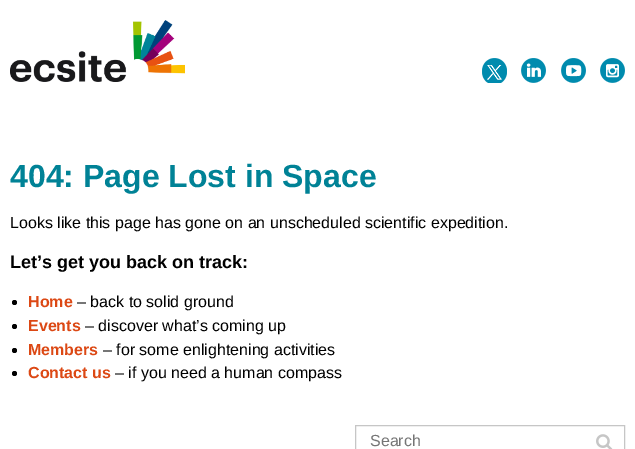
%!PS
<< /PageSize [635 449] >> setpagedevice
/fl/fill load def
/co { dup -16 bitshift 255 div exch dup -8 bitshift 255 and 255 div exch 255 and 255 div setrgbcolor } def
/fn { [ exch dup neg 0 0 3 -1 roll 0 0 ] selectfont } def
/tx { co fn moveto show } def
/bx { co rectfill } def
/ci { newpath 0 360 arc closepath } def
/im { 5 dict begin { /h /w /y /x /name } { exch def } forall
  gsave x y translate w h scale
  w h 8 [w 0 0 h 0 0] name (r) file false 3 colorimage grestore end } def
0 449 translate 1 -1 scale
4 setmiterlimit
0 0 635 449 16#FFFFFF bx
(media/1.raw) 10 20 175 62 im
(media/2.raw) 482 58 25 25 im
(media/3.raw) 521 58 25 25 im
(media/4.raw) 561 58 25 25 im
(media/5.raw) 600 58 25 25 im
16#000000 co
14.5 302.5 2.5 ci fl
14.5 326.5 2.5 ci fl
14.5 350.5 2.5 ci fl
14.5 373.5 2.5 ci fl
16#C6C6C6 co
355.5 425.5 269 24 rectstroke
(media/6.raw) 596 434 17 15 im
(404: Page Lost in Space) 10 187 /LiberationSans-Bold 32 16#008296 tx
(Looks like this page has gone on an unscheduled scientific expedition.) 10 228 /LiberationSans-Regular 16 16#000000 tx
(Let’s get you back on track:) 10 268 /LiberationSans-Bold 18 16#000000 tx
(Home) 28 307 /LiberationSans-Bold 16 16#DC4814 tx
(– back to solid ground) 77 307 /LiberationSans-Regular 16 16#000000 tx
(Events) 28 331 /LiberationSans-Bold 16 16#DC4814 tx
(– discover what’s coming up) 85 331 /LiberationSans-Regular 16 16#000000 tx
(Members) 28 355 /LiberationSans-Bold 16 16#DC4814 tx
(– for some enlightening activities) 103 355 /LiberationSans-Regular 16 16#000000 tx
(Contact us) 28 378 /LiberationSans-Bold 16 16#DC4814 tx
(– if you need a human compass) 115 378 /LiberationSans-Regular 16 16#000000 tx
(Search) 370 446 /LiberationSans-Regular 16 16#757575 tx
showpage
